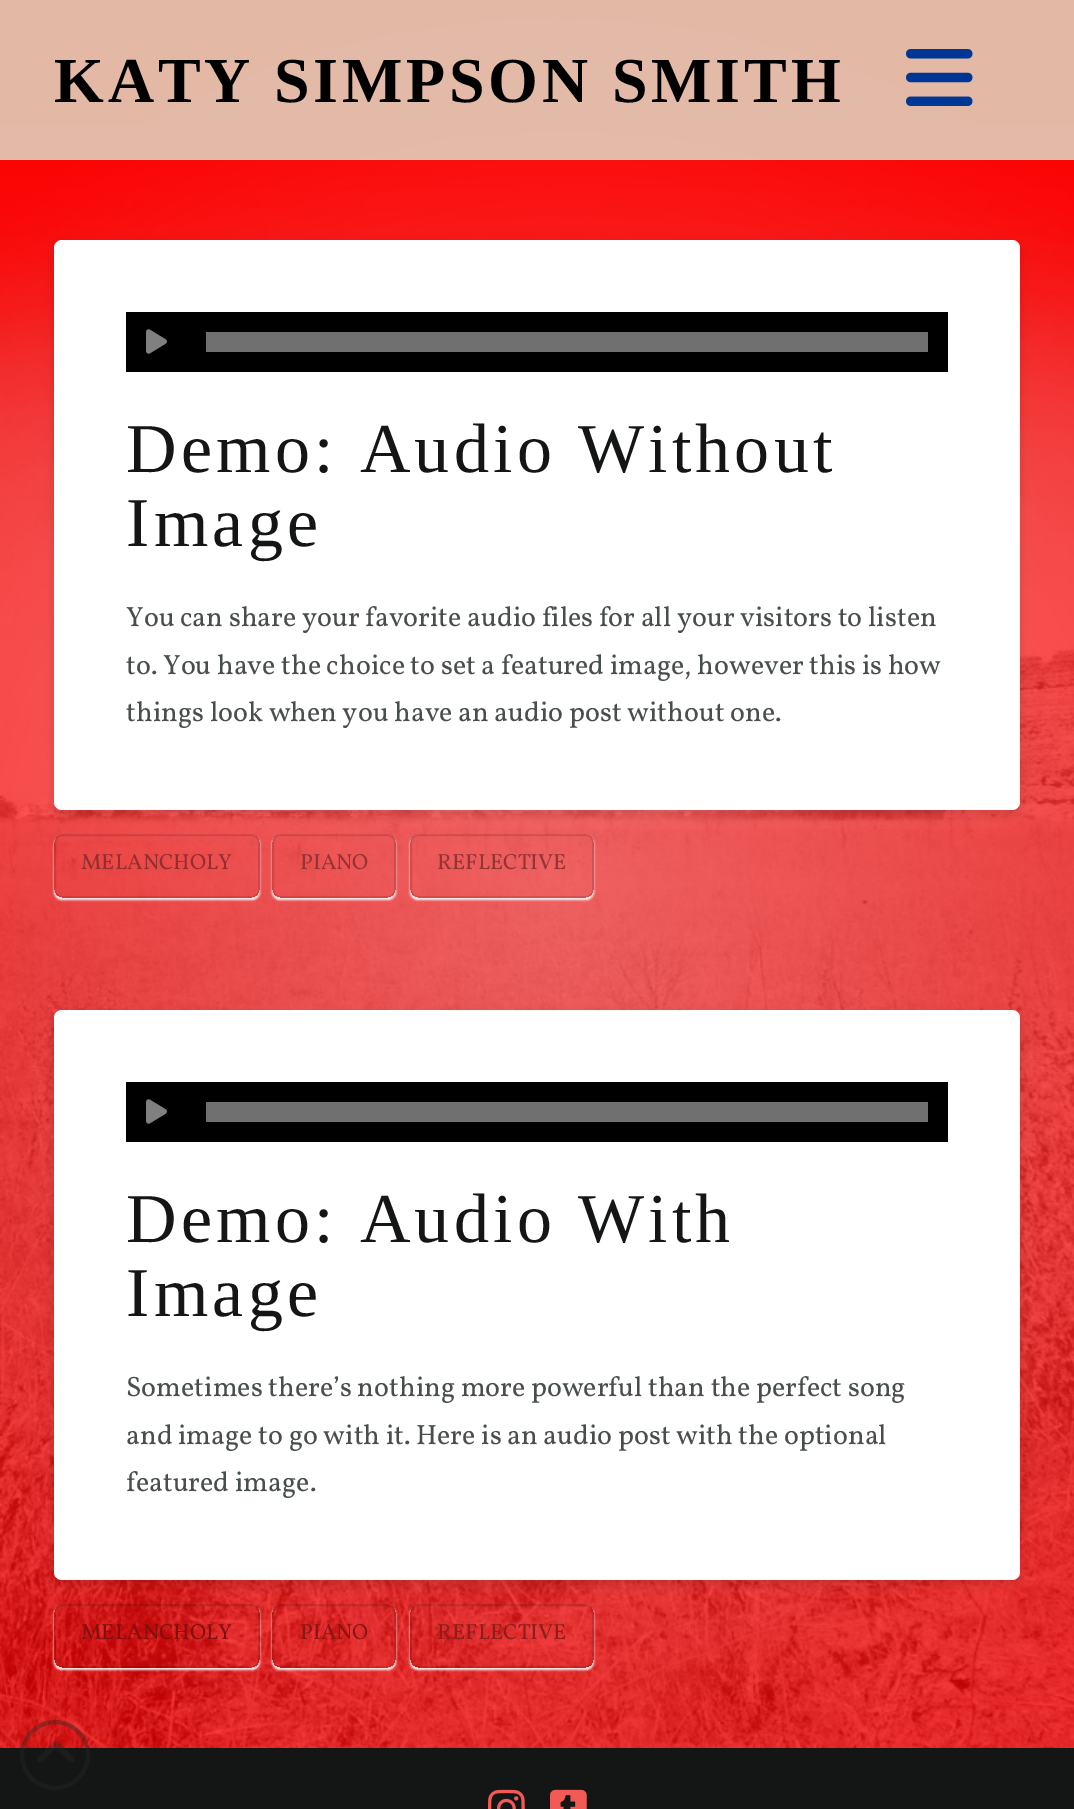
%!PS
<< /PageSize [1074 1809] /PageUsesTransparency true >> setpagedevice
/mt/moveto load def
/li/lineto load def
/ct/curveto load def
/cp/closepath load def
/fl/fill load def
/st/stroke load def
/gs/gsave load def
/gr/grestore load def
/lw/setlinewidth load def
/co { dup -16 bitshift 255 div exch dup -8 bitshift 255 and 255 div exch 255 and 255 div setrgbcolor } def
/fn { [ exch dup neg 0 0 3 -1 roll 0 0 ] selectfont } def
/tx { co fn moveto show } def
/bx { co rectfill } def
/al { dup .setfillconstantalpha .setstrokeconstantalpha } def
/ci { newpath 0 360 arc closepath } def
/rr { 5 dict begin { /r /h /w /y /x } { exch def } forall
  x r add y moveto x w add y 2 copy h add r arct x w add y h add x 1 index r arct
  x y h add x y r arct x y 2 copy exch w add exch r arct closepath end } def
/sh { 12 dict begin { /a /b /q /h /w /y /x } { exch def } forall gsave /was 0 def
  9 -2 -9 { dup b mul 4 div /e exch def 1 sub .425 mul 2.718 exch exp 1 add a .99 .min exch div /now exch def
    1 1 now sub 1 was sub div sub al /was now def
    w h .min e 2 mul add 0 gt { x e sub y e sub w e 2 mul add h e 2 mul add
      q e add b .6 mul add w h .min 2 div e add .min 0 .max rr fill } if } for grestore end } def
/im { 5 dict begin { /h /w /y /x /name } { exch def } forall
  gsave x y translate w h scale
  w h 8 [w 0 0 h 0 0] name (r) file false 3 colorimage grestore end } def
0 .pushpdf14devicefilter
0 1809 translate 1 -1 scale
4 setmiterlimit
0 0 1074 1809 16#FFFFFF bx
(media/1.raw) 0 0 1074 1748 im
0.85 al
0 0 1074 160 16#DFD9C3 bx
1 al
(media/2.raw) 906 49 67 57 im
16#000000 co
54 244 966 570 8 5 .13 sh
16#FFFFFF co
54 240 966 570 8 rr fl
126 312 822 60 16#000000 bx
(media/3.raw) 146 329 21 25 im
206 332 722 20 16#707070 bx
gs
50 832 mt 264 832 li 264 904 li 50 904 li cp 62 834 mt 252 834 li 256.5 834 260 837.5 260 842 ct 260 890 li 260 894.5 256.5 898 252 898 ct 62 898 li 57.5 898 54 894.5 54 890 ct 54 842 li 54 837.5 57.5 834 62 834 ct cp eoclip newpath
16#FFFFFF co
54 836 206 64 8 1 .95 sh
gr
0.12 al
16#000000 co
2 lw
55 835 204 62 7 rr st
gs
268 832 mt 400 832 li 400 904 li 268 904 li cp 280 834 mt 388 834 li 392.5 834 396 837.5 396 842 ct 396 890 li 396 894.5 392.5 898 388 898 ct 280 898 li 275.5 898 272 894.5 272 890 ct 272 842 li 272 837.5 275.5 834 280 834 ct cp eoclip newpath
1 al
16#FFFFFF co
272 836 124 64 8 1 .95 sh
gr
273 835 122 62 7 rr st
gs
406 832 mt 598 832 li 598 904 li 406 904 li cp 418 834 mt 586 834 li 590.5 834 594 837.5 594 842 ct 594 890 li 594 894.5 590.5 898 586 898 ct 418 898 li 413.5 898 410 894.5 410 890 ct 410 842 li 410 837.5 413.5 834 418 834 ct cp eoclip newpath
1 al
16#FFFFFF co
410 836 184 64 8 1 .95 sh
gr
411 835 182 62 7 rr st
1 al
54 1014 966 570 8 5 .13 sh
16#FFFFFF co
54 1010 966 570 8 rr fl
126 1082 822 60 16#000000 bx
(media/3.raw) 146 1099 21 25 im
206 1102 722 20 16#707070 bx
gs
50 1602 mt 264 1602 li 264 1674 li 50 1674 li cp 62 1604 mt 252 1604 li 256.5 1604 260 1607.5 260 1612 ct 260 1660 li 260 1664.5 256.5 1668 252 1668 ct 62 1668 li 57.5 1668 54 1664.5 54 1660 ct 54 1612 li 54 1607.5 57.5 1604 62 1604 ct cp eoclip newpath
16#FFFFFF co
54 1606 206 64 8 1 .95 sh
gr
0.12 al
16#000000 co
55 1605 204 62 7 rr st
gs
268 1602 mt 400 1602 li 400 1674 li 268 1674 li cp 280 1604 mt 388 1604 li 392.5 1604 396 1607.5 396 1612 ct 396 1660 li 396 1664.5 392.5 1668 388 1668 ct 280 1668 li 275.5 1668 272 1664.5 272 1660 ct 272 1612 li 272 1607.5 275.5 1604 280 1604 ct cp eoclip newpath
1 al
16#FFFFFF co
272 1606 124 64 8 1 .95 sh
gr
273 1605 122 62 7 rr st
gs
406 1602 mt 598 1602 li 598 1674 li 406 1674 li cp 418 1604 mt 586 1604 li 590.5 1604 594 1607.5 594 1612 ct 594 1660 li 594 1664.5 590.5 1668 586 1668 ct 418 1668 li 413.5 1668 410 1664.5 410 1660 ct 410 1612 li 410 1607.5 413.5 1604 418 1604 ct cp eoclip newpath
1 al
16#FFFFFF co
410 1606 184 64 8 1 .95 sh
gr
411 1605 182 62 7 rr st
1 al
0 1748 1074 61 16#141615 bx
(media/4.raw) 488 1789 37 20 im
(media/5.raw) 550 1789 37 20 im
0.38 al
16#272727 co
4 lw
55 1755 33 ci st
1 al
(media/6.raw) 37 1740 38 23 im
/LiberationSerif-Bold 64 fn
16#000000 co
54 102 mt 3.8 0 (KATY SIMPSON SMITH) ashow
/LiberationSerif-Regular 70 fn
16#141615 co
126 472 mt 4.25 0 (Demo: Audio Without) ashow
126 546 mt 4.25 0 (Image) ashow
(You can share your favorite audio files for all your visitors to listen) 126 626 /Vollkorn-Regular 28 16#484E4C tx
(to. You have the choice to set a featured image, however this is how) 126 674 /Vollkorn-Regular 28 16#484E4C tx
(things look when you have an audio post without one.) 126 721 /Vollkorn-Regular 28 16#484E4C tx
(MELANCHOLY) 81 869 /Vollkorn-Regular 22 16#932E2E tx
(PIANO) 300 869 /Vollkorn-Regular 22 16#933434 tx
(REFLECTIVE) 437 869 /Vollkorn-Regular 22 16#933434 tx
/LiberationSerif-Regular 70 fn
16#141615 co
126 1242 mt 4.25 0 (Demo: Audio With) ashow
126 1316 mt 4.25 0 (Image) ashow
(Sometimes there’s nothing more powerful than the perfect song) 126 1396 /Vollkorn-Regular 28 16#484E4C tx
(and image to go with it. Here is an audio post with the optional) 126 1444 /Vollkorn-Regular 28 16#484E4C tx
(featured image.) 126 1491 /Vollkorn-Regular 28 16#484E4C tx
(MELANCHOLY) 81 1639 /Vollkorn-Regular 22 16#810F0F tx
(PIANO) 300 1639 /Vollkorn-Regular 22 16#871717 tx
(REFLECTIVE) 437 1639 /Vollkorn-Regular 22 16#8C1D1D tx
.poppdf14devicefilter showpage
